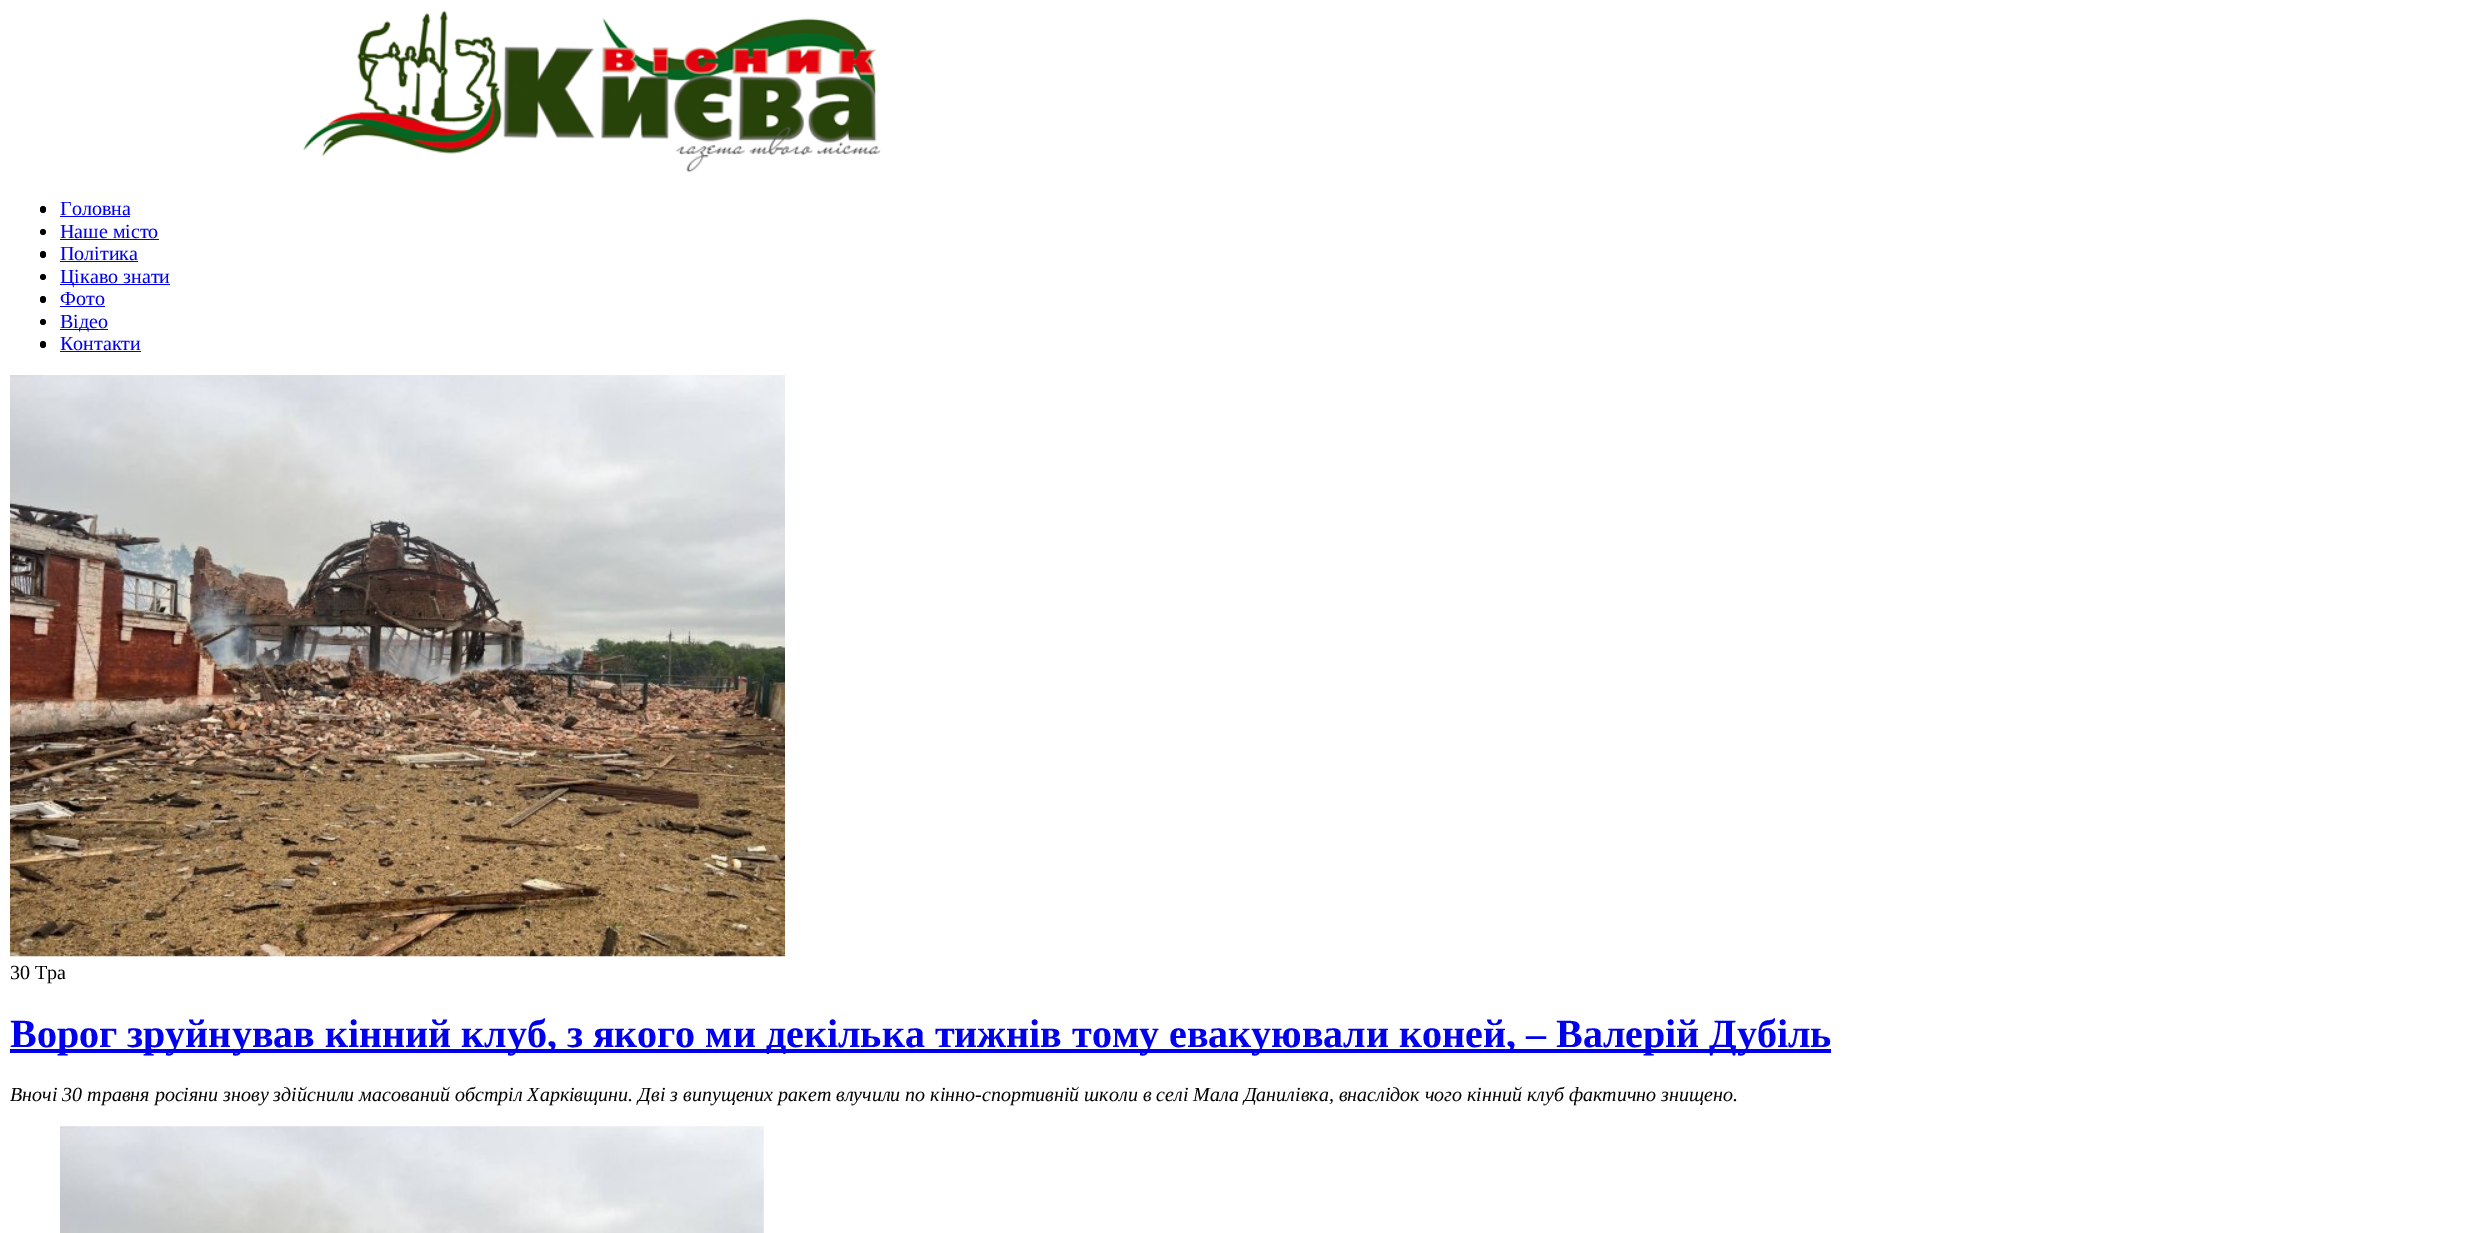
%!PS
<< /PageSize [2476 1233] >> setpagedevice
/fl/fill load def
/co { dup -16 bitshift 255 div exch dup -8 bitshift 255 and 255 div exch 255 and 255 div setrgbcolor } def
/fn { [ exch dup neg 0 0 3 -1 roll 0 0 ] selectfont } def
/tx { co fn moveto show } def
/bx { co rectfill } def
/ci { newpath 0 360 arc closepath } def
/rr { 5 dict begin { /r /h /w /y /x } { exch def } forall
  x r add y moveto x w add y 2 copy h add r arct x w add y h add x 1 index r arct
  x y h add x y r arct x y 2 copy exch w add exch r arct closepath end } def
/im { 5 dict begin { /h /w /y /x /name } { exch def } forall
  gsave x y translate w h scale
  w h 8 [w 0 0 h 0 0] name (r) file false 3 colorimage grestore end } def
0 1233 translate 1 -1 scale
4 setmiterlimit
0 0 2476 1233 16#FFFFFF bx
(media/1.raw) 303 11 578 162 im
16#000000 co
40 206 6 7 3 rr fl
60 216 70 1 16#0000EE bx
16#000000 co
43 232 3 ci fl
60 239 99 1 16#0000EE bx
16#000000 co
40 251 6 7 3 rr fl
60 261 78 1 16#0000EE bx
16#000000 co
43 277 3 ci fl
60 284 110 1 16#0000EE bx
16#000000 co
40 296 6 7 3 rr fl
60 306 45 1 16#0000EE bx
16#000000 co
43 322 3 ci fl
60 329 48 1 16#0000EE bx
16#000000 co
40 341 6 7 3 rr fl
60 351 81 1 16#0000EE bx
(media/2.raw) 10 375 775 582 im
10 1049 1821 4 16#0000EE bx
(media/3.raw) 60 1126 704 107 im
(Головна) 60 215 /LiberationSerif-Regular 20 16#0000EE tx
(Наше місто) 60 238 /LiberationSerif-Regular 20 16#0000EE tx
(Політика) 60 260 /LiberationSerif-Regular 20 16#0000EE tx
(Цікаво знати) 60 283 /LiberationSerif-Regular 20 16#0000EE tx
(Фото) 60 305 /LiberationSerif-Regular 20 16#0000EE tx
(Відео) 60 328 /LiberationSerif-Regular 20 16#0000EE tx
(Контакти) 60 350 /LiberationSerif-Regular 20 16#0000EE tx
(30 Тра) 10 979 /LiberationSerif-Regular 20 16#000000 tx
(Ворог зруйнував кінний клуб, з якого ми декілька тижнів тому евакуювали коней, – Валерій Дубіль) 10 1047 /LiberationSerif-Bold 40 16#0000EE tx
(Вночі 30 травня росіяни знову здійснили масований обстріл Харківщини. Дві з випущених ракет влучили по кінно-спортивній школи в селі Мала Данилівка, внаслідок чого кінний клуб фактично знищено.) 10 1101 /LiberationSerif-Italic 20 16#000000 tx
showpage
